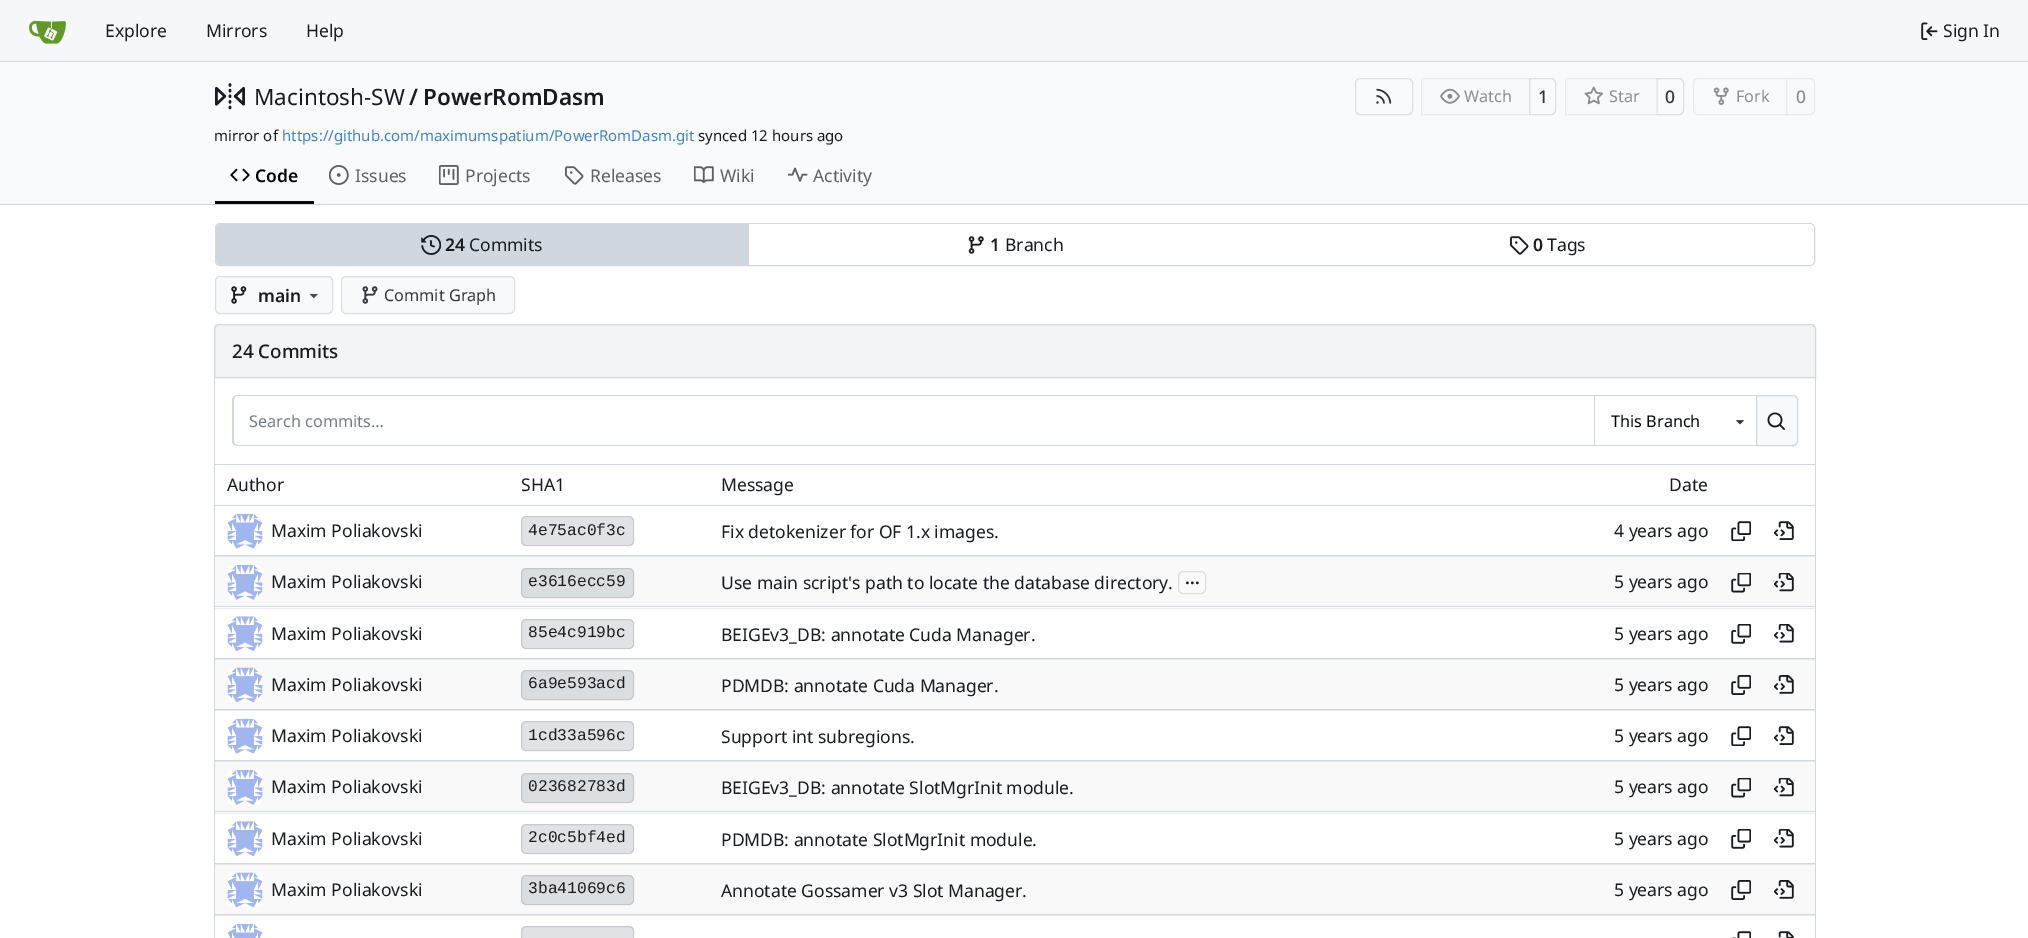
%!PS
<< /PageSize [2028 938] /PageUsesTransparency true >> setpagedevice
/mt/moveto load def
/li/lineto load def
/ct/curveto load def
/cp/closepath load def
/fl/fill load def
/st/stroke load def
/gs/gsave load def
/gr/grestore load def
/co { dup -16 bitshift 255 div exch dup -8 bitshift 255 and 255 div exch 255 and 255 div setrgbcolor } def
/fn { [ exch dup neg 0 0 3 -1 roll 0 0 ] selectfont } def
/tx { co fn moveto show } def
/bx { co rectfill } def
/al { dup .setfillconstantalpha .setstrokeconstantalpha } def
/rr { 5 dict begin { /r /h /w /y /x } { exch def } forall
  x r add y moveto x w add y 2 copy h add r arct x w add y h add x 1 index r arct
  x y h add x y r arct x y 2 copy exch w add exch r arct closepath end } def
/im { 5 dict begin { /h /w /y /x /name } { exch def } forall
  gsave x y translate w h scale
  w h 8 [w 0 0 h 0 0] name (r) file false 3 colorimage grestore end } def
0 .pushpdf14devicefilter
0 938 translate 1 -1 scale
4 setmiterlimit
0 0 2028 938 16#FFFFFF bx
0 0 2028 61 16#F6F7FA bx
0 61 2028 1 16#D0D7DE bx
(media/1.raw) 29 20 37 24 im
(media/2.raw) 1921 22 17 18 im
0 63 2028 141 16#F9FAFB bx
(media/3.raw) 215 83 30 27 im
16#DDDEE1 co
1355.5 78.5 57 36 4.5 rr st
(media/4.raw) 1376 88 16 16 im
1529.5 78.5 mt 1551 78.5 li 1553.5 78.5 1555.5 80.5 1555.5 83 ct 1555.5 110 li 1555.5 112.5 1553.5 114.5 1551 114.5 ct 1529.5 114.5 li cp st
0.55 al
16#F8F9FB co
1426 78 mt 1530 78 li 1530 115 li 1426 115 li 1423 115 1421 113 1421 110 ct 1421 83 li 1421 80 1423 78 1426 78 ct cp fl
0.06 al
16#000017 co
1421.5 78.5 108 36 rectstroke
1 al
(media/5.raw) 1440 88 20 16 im
16#DDDEE1 co
1656.5 78.5 mt 1679 78.5 li 1681.5 78.5 1683.5 80.5 1683.5 83 ct 1683.5 110 li 1683.5 112.5 1681.5 114.5 1679 114.5 ct 1656.5 114.5 li cp st
0.55 al
16#F8F9FB co
1570 78 mt 1658 78 li 1658 115 li 1570 115 li 1567 115 1565 113 1565 110 ct 1565 83 li 1565 80 1567 78 1570 78 ct cp fl
0.06 al
16#000017 co
1565.5 78.5 92 36 rectstroke
1 al
(media/6.raw) 1584 86 19 19 im
16#E9EAED co
1698 78.5 mt 1787.5 78.5 li 1787.5 114.5 li 1698 114.5 li 1695.5 114.5 1693.5 112.5 1693.5 110 ct 1693.5 83 li 1693.5 80.5 1695.5 78.5 1698 78.5 ct cp st
(media/7.raw) 1713 87 16 18 im
16#F8F9FB co
1786.5 78.5 mt 1810 78.5 li 1812.5 78.5 1814.5 80.5 1814.5 83 ct 1814.5 110 li 1814.5 112.5 1812.5 114.5 1810 114.5 ct 1786.5 114.5 li cp gs fl gr
16#E9EAED co
st
215 201 99 3 16#01050A bx
(media/8.raw) 230 168 20 14 im
(media/9.raw) 329 165 20 20 im
(media/10.raw) 439 165 20 20 im
(media/11.raw) 565 166 19 19 im
(media/12.raw) 694 166 20 18 im
(media/13.raw) 788 167 20 15 im
0 204 2028 1 16#D0D7DE bx
215.5 223.5 1599 42 4.5 rr st
16#FFFFFF co
216 224 1598 41 5 rr fl
16#D0D7DE co
221 224 mt 749 224 li 749 265 li 221 265 li 218 265 216 263 216 260 ct 216 229 li 216 226 218 224 221 224 ct cp fl
(media/14.raw) 421 235 20 20 im
(media/15.raw) 968 236 16 18 im
(media/16.raw) 1510 236 19 19 im
16#F8F9FB co
215 276 118 38 5 rr fl
0.11 al
16#000017 co
215.5 276.5 117 37 4.5 rr st
1 al
(media/17.raw) 231 286 16 18 im
(media/18.raw) 309 293 9 6 im
16#F8F9FB co
341 276 174 38 5 rr fl
0.11 al
16#000017 co
341.5 276.5 173 37 4.5 rr st
1 al
(media/19.raw) 362 286 16 18 im
16#F1F3F5 co
219 324.5 mt 1811 324.5 li 1813.5 324.5 1815.5 326.5 1815.5 329 ct 1815.5 377.5 li 214.5 377.5 li 214.5 329 li 214.5 326.5 216.5 324.5 219 324.5 ct cp gs fl gr
16#D0D7DE co
st
1815 378 1 87 16#D0D7DE bx
214 464 1602 1 16#D0D7DE bx
214 378 1 87 16#D0D7DE bx
238 395 mt 1594 395 li 1594 446 li 238 446 li 235 446 232 444 232 441 ct 232 400 li 232 397 235 395 238 395 ct cp 238 396 mt 1594 396 li 1594 445 li 238 445 li 235 445 234 443 234 441 ct 234 400 li 234 398 235 396 238 396 ct cp eofill
1594 395 162 1 16#D0D7DE bx
1594 445 162 1 16#D0D7DE bx
1594 395 1 51 16#D0D7DE bx
(media/20.raw) 1736 420 8 5 im
16#F8F9FB co
1756.5 395.5 mt 1793 395.5 li 1795.5 395.5 1797.5 397.5 1797.5 400 ct 1797.5 441 li 1797.5 443.5 1795.5 445.5 1793 445.5 ct 1756.5 445.5 li cp gs fl gr
16#D0D7DE co
st
(media/21.raw) 1767 412 18 18 im
214 465 mt 1816 465 li 1816 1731 li 1816 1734 1814 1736 1811 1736 ct 219 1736 li 216 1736 214 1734 214 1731 ct cp 215 465 mt 1815 465 li 1815 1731 li 1815 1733 1813 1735 1811 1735 ct 219 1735 li 217 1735 215 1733 215 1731 ct cp eofill
215 505 1600 1 16#D0D7DE bx
215 555 1600 1 16#D0D7DE bx
(media/22.raw) 227 513 36 36 im
16#E0E2E5 co
521 516 113 30 5 rr fl
0.11 al
16#000017 co
521.5 516.5 112 29 4.5 rr st
1 al
(media/23.raw) 1731 521 20 20 im
(media/24.raw) 1774 521 20 19 im
215 557 1600 49 16#F9F9FA bx
215 606 1600 1 16#D0D7DE bx
215 556 1600 1 16#E5E8EC bx
(media/25.raw) 227 565 36 35 im
16#DBDEE1 co
521 568 113 30 5 rr fl
0.11 al
16#000017 co
521.5 568.5 112 29 4.5 rr st
1 al
16#DDDDE0 co
1178.5 571.5 27 22 4.5 rr st
(media/26.raw) 1731 573 20 20 im
(media/27.raw) 1774 573 20 19 im
215 658 1600 1 16#D0D7DE bx
215 608 1600 1 16#E8EBEF bx
(media/28.raw) 227 616 36 36 im
16#E0E2E5 co
521 619 113 30 5 rr fl
0.11 al
16#000017 co
521.5 619.5 112 29 4.5 rr st
1 al
(media/29.raw) 1731 624 20 20 im
(media/30.raw) 1774 624 20 19 im
215 660 1600 49 16#F9F9FA bx
215 709 1600 1 16#D0D7DE bx
215 659 1600 1 16#E5E8EC bx
(media/31.raw) 227 667 36 36 im
16#DBDEE1 co
521 670 113 30 5 rr fl
0.11 al
16#000017 co
521.5 670.5 112 29 4.5 rr st
1 al
(media/32.raw) 1731 675 20 20 im
(media/33.raw) 1774 675 20 19 im
215 760 1600 1 16#D0D7DE bx
215 710 1600 1 16#E8EBEF bx
(media/22.raw) 227 718 36 36 im
16#E0E2E5 co
521 721 113 30 5 rr fl
0.11 al
16#000017 co
521.5 721.5 112 29 4.5 rr st
1 al
(media/23.raw) 1731 726 20 20 im
(media/24.raw) 1774 726 20 19 im
215 762 1600 49 16#F9F9FA bx
215 811 1600 1 16#D0D7DE bx
215 761 1600 1 16#E5E8EC bx
(media/34.raw) 227 770 36 35 im
16#DBDEE1 co
521 773 113 30 5 rr fl
0.11 al
16#000017 co
521.5 773.5 112 29 4.5 rr st
1 al
(media/26.raw) 1731 778 20 20 im
(media/27.raw) 1774 778 20 19 im
215 863 1600 1 16#D0D7DE bx
215 813 1600 1 16#E8EBEF bx
(media/28.raw) 227 821 36 36 im
16#E0E2E5 co
521 824 113 30 5 rr fl
0.11 al
16#000017 co
521.5 824.5 112 29 4.5 rr st
1 al
(media/29.raw) 1731 829 20 20 im
(media/30.raw) 1774 829 20 19 im
215 865 1600 49 16#F9F9FA bx
215 914 1600 1 16#D0D7DE bx
215 864 1600 1 16#E5E8EC bx
(media/31.raw) 227 872 36 36 im
16#DBDEE1 co
521 875 113 30 5 rr fl
0.11 al
16#000017 co
521.5 875.5 112 29 4.5 rr st
1 al
(media/32.raw) 1731 880 20 20 im
(media/33.raw) 1774 880 20 19 im
215 915 1600 1 16#E8EBEF bx
(media/35.raw) 227 923 36 15 im
16#E0E2E5 co
521 926 113 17 5 rr fl
0.11 al
16#000017 co
521.5 926.5 112 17 4.5 rr st
1 al
(media/36.raw) 1732 931 19 7 im
(media/37.raw) 1778 931 16 7 im
(Explore) 105 37 /NotoSans-Regular 17.5 16#181C21 tx
(Mirrors) 206 37 /NotoSans-Regular 17.5 16#181C21 tx
(Help) 306 37 /NotoSans-Regular 17.5 16#181C21 tx
(Sign In) 1943 37 /NotoSans-Regular 17.5 16#181C21 tx
(Macintosh-SW) 254 105 /NotoSans-Regular 22.5 16#181C21 tx
(/) 409 105 /NotoSans-SemiBold 22.5 16#181C21 tx
(PowerRomDasm) 423 105 /NotoSans-SemiBold 22.5 16#181C21 tx
(Watch) 1464 102 /NotoSans-Regular 16.25 16#8A8E91 tx
(1) 1538 103 /NotoSans-Medium 17.5 16#30363B tx
(Star) 1609 102 /NotoSans-Regular 16.25 16#8A8E91 tx
(0) 1665 103 /NotoSans-Medium 17.5 16#30363B tx
(Fork) 1736 102 /NotoSans-Regular 16.25 16#8A8E91 tx
(0) 1796 103 /NotoSans-Medium 17.5 16#8A8E91 tx
(mirror of) 214 141 /NotoSans-Regular 15 16#181C21 tx
(https://github.com/maximumspatium/PowerRomDasm.git) 282 141 /NotoSans-Regular 15 16#4183C4 tx
(synced 12 hours ago) 698 141 /NotoSans-Regular 15 16#181C21 tx
(Code) 255 182 /NotoSans-SemiBold 17.5 16#01050A tx
(Issues) 355 182 /NotoSans-Regular 17.5 16#5B6167 tx
(Projects) 465 182 /NotoSans-Regular 17.5 16#5B6167 tx
(Releases) 590 182 /NotoSans-Regular 17.5 16#5B6167 tx
(Wiki) 720 182 /NotoSans-Regular 17.5 16#5B6167 tx
(Activity) 813 182 /NotoSans-Regular 17.5 16#5B6167 tx
(24) 445 251 /NotoSans-SemiBold 17.5 16#181C21 tx
(Commits) 469 251 /NotoSans-Regular 17.5 16#181C21 tx
(1) 990 251 /NotoSans-SemiBold 17.5 16#181C21 tx
(Branch) 1005 251 /NotoSans-Regular 17.5 16#181C21 tx
(0) 1533 251 /NotoSans-SemiBold 17.5 16#181C21 tx
(Tags) 1547 251 /NotoSans-Regular 17.5 16#181C21 tx
(main) 258 302 /NotoSans-SemiBold 17.5 16#181C21 tx
(Commit Graph) 384 301 /NotoSans-Regular 16.25 16#30363B tx
(24 Commits) 232 358 /NotoSans-Medium 18.75 16#181C21 tx
(Search commits…) 249 427 /NotoSans-Regular 16.25 16#747C84 tx
(This Branch) 1611 427 /NotoSans-Regular 16.25 16#01050A tx
(Author) 227 491 /NotoSans-Regular 17.5 16#181C21 tx
(SHA1) 521 491 /NotoSans-Regular 17.5 16#181C21 tx
(Message) 721 491 /NotoSans-Regular 17.5 16#181C21 tx
(Date) 1669 491 /NotoSans-Regular 17.5 16#181C21 tx
(Maxim Poliakovski) 271 537 /NotoSans-Regular 17.5 16#181C21 tx
(4e75ac0f3c) 528 535 /LiberationMono-Regular 16.25 16#181C21 tx
(Fix detokenizer for OF 1.x images.) 721 538 /NotoSans-Regular 17.5 16#181C21 tx
(4 years ago) 1614 537 /NotoSans-Regular 17.5 16#181C21 tx
(Maxim Poliakovski) 271 588 /NotoSans-Regular 17.5 16#181C21 tx
(e3616ecc59) 528 586 /LiberationMono-Regular 16.25 16#181C21 tx
(Use main script's path to locate the database directory.) 721 589 /NotoSans-Regular 17.5 16#181C21 tx
(...) 1185 584 /NotoSans-SemiBold 17.5 16#181C21 tx
(5 years ago) 1614 588 /NotoSans-Regular 17.5 16#181C21 tx
(Maxim Poliakovski) 271 640 /NotoSans-Regular 17.5 16#181C21 tx
(85e4c919bc) 528 637 /LiberationMono-Regular 16.25 16#181C21 tx
(BEIGEv3_DB: annotate Cuda Manager.) 721 641 /NotoSans-Regular 17.5 16#181C21 tx
(5 years ago) 1614 640 /NotoSans-Regular 17.5 16#181C21 tx
(Maxim Poliakovski) 271 691 /NotoSans-Regular 17.5 16#181C21 tx
(6a9e593acd) 528 688 /LiberationMono-Regular 16.25 16#181C21 tx
(PDMDB: annotate Cuda Manager.) 721 692 /NotoSans-Regular 17.5 16#181C21 tx
(5 years ago) 1614 691 /NotoSans-Regular 17.5 16#181C21 tx
(Maxim Poliakovski) 271 742 /NotoSans-Regular 17.5 16#181C21 tx
(1cd33a596c) 528 740 /LiberationMono-Regular 16.25 16#181C21 tx
(Support int subregions.) 721 743 /NotoSans-Regular 17.5 16#181C21 tx
(5 years ago) 1614 742 /NotoSans-Regular 17.5 16#181C21 tx
(Maxim Poliakovski) 271 793 /NotoSans-Regular 17.5 16#181C21 tx
(023682783d) 528 791 /LiberationMono-Regular 16.25 16#181C21 tx
(BEIGEv3_DB: annotate SlotMgrInit module.) 721 794 /NotoSans-Regular 17.5 16#181C21 tx
(5 years ago) 1614 793 /NotoSans-Regular 17.5 16#181C21 tx
(Maxim Poliakovski) 271 845 /NotoSans-Regular 17.5 16#181C21 tx
(2c0c5bf4ed) 528 842 /LiberationMono-Regular 16.25 16#181C21 tx
(PDMDB: annotate SlotMgrInit module.) 721 846 /NotoSans-Regular 17.5 16#181C21 tx
(5 years ago) 1614 845 /NotoSans-Regular 17.5 16#181C21 tx
(Maxim Poliakovski) 271 896 /NotoSans-Regular 17.5 16#181C21 tx
(3ba41069c6) 528 893 /LiberationMono-Regular 16.25 16#181C21 tx
(Annotate Gossamer v3 Slot Manager.) 721 897 /NotoSans-Regular 17.5 16#181C21 tx
(5 years ago) 1614 896 /NotoSans-Regular 17.5 16#181C21 tx
.poppdf14devicefilter showpage
